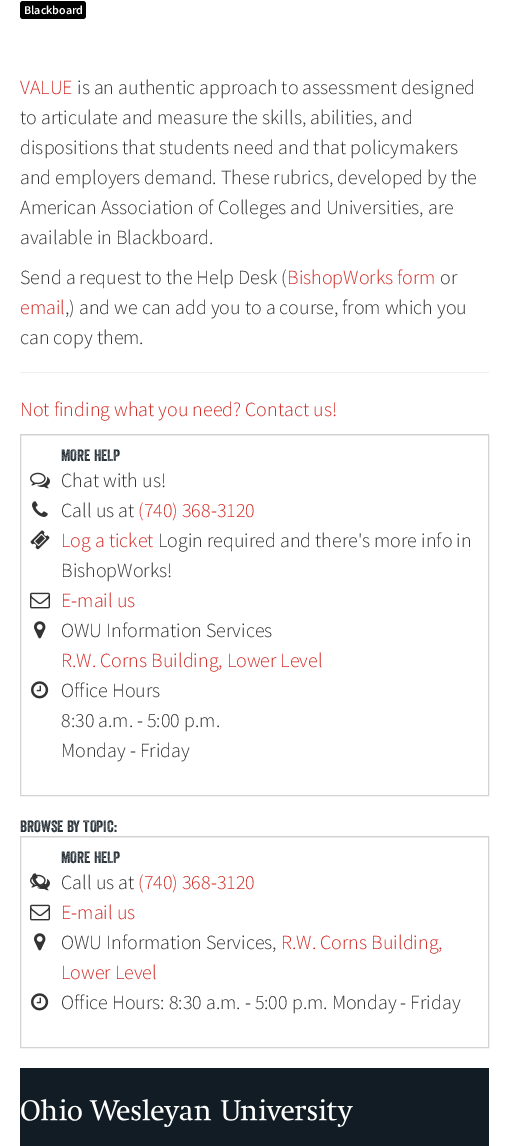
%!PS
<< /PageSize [509 1146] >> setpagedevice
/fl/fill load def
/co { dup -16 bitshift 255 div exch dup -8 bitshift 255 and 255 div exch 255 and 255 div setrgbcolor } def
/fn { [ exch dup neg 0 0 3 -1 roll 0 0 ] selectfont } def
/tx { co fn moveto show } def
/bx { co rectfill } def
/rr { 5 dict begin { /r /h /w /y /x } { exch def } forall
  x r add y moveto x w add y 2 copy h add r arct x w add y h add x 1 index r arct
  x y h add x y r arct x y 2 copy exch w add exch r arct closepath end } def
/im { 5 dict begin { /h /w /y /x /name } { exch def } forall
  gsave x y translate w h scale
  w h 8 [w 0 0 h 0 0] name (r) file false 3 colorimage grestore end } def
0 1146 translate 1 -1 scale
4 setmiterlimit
0 0 509 1146 16#FFFFFF bx
16#000000 co
20 1 66 18 3 rr fl
20 372 469 1 16#EEEEEE bx
21 435 467 1 16#F2F2F2 bx
16#D2D3D3 co
20.5 434.5 468 361 rectstroke
(media/1.raw) 30 472 20 17 im
(media/2.raw) 32 501 16 16 im
(media/3.raw) 30 530 20 20 im
(media/4.raw) 30 592 20 17 im
(media/5.raw) 34 621 12 18 im
(media/6.raw) 31 681 18 18 im
21 837 467 1 16#F2F2F2 bx
16#D2D3D3 co
20.5 836.5 468 211 rectstroke
(media/1.raw) 30 874 20 17 im
(media/7.raw) 32 873 16 16 im
(media/4.raw) 30 904 20 17 im
(media/5.raw) 34 933 12 18 im
(media/6.raw) 31 993 18 18 im
20 1068 469 78 16#111C24 bx
(media/8.raw) 21 1099 332 28 im
(Blackboard) 24 14 /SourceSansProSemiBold-SemiBold 12 16#FFFFFF tx
(VALUE) 20 94 /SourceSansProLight-Light 20 16#D32D27 tx
(is an authentic approach to assessment designed) 77 94 /SourceSansProLight-Light 20 16#333333 tx
(to articulate and measure the skills, abilities, and) 20 124 /SourceSansProLight-Light 20 16#333333 tx
(dispositions that students need and that policymakers) 20 154 /SourceSansProLight-Light 20 16#333333 tx
(and employers demand. These rubrics, developed by the) 20 184 /SourceSansProLight-Light 20 16#333333 tx
(American Association of Colleges and Universities, are) 20 214 /SourceSansProLight-Light 20 16#333333 tx
(available in Blackboard.) 20 244 /SourceSansProLight-Light 20 16#333333 tx
(Send a request to the Help Desk \() 20 284 /SourceSansProLight-Light 20 16#333333 tx
(BishopWorks form) 287 284 /SourceSansProLight-Light 20 16#D32D27 tx
(or) 440 284 /SourceSansProLight-Light 20 16#333333 tx
(email) 20 314 /SourceSansProLight-Light 20 16#D32D27 tx
(,\) and we can add you to a course, from which you) 65 314 /SourceSansProLight-Light 20 16#333333 tx
(can copy them.) 20 344 /SourceSansProLight-Light 20 16#333333 tx
(Not finding what you need? Contact us!) 20 416 /SourceSansProLight-Light 20 16#D32D27 tx
(MORE HELP) 61 461 /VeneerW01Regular-Regular 16 16#29333A tx
(Chat with us!) 61 487 /SourceSansProLight-Light 20 16#333333 tx
(Call us at) 61 517 /SourceSansProLight-Light 20 16#333333 tx
(\(740\) 368-3120) 138 517 /SourceSansProLight-Light 20 16#D32D27 tx
(Log a ticket) 61 547 /SourceSansProLight-Light 20 16#D32D27 tx
(Login required and there's more info in) 158 547 /SourceSansProLight-Light 20 16#333333 tx
(BishopWorks!) 61 577 /SourceSansProLight-Light 20 16#333333 tx
(E-mail us) 61 607 /SourceSansProLight-Light 20 16#D32D27 tx
(OWU Information Services) 61 637 /SourceSansProLight-Light 20 16#333333 tx
(R.W. Corns Building, Lower Level) 61 667 /SourceSansProLight-Light 20 16#D32D27 tx
(Office Hours) 61 697 /SourceSansProLight-Light 20 16#333333 tx
(8:30 a.m. - 5:00 p.m.) 61 727 /SourceSansProLight-Light 20 16#333333 tx
(Monday - Friday) 61 757 /SourceSansProLight-Light 20 16#333333 tx
(BROWSE BY TOPIC:) 20 832 /VeneerW01Regular-Regular 16 16#29333A tx
(MORE HELP) 61 863 /VeneerW01Regular-Regular 16 16#29333A tx
(Call us at) 61 889 /SourceSansProLight-Light 20 16#333333 tx
(\(740\) 368-3120) 138 889 /SourceSansProLight-Light 20 16#D32D27 tx
(E-mail us) 61 919 /SourceSansProLight-Light 20 16#D32D27 tx
(OWU Information Services,) 61 949 /SourceSansProLight-Light 20 16#333333 tx
(R.W. Corns Building,) 281 949 /SourceSansProLight-Light 20 16#D32D27 tx
(Lower Level) 61 979 /SourceSansProLight-Light 20 16#D32D27 tx
(Office Hours: 8:30 a.m. - 5:00 p.m. Monday - Friday) 61 1009 /SourceSansProLight-Light 20 16#333333 tx
showpage
